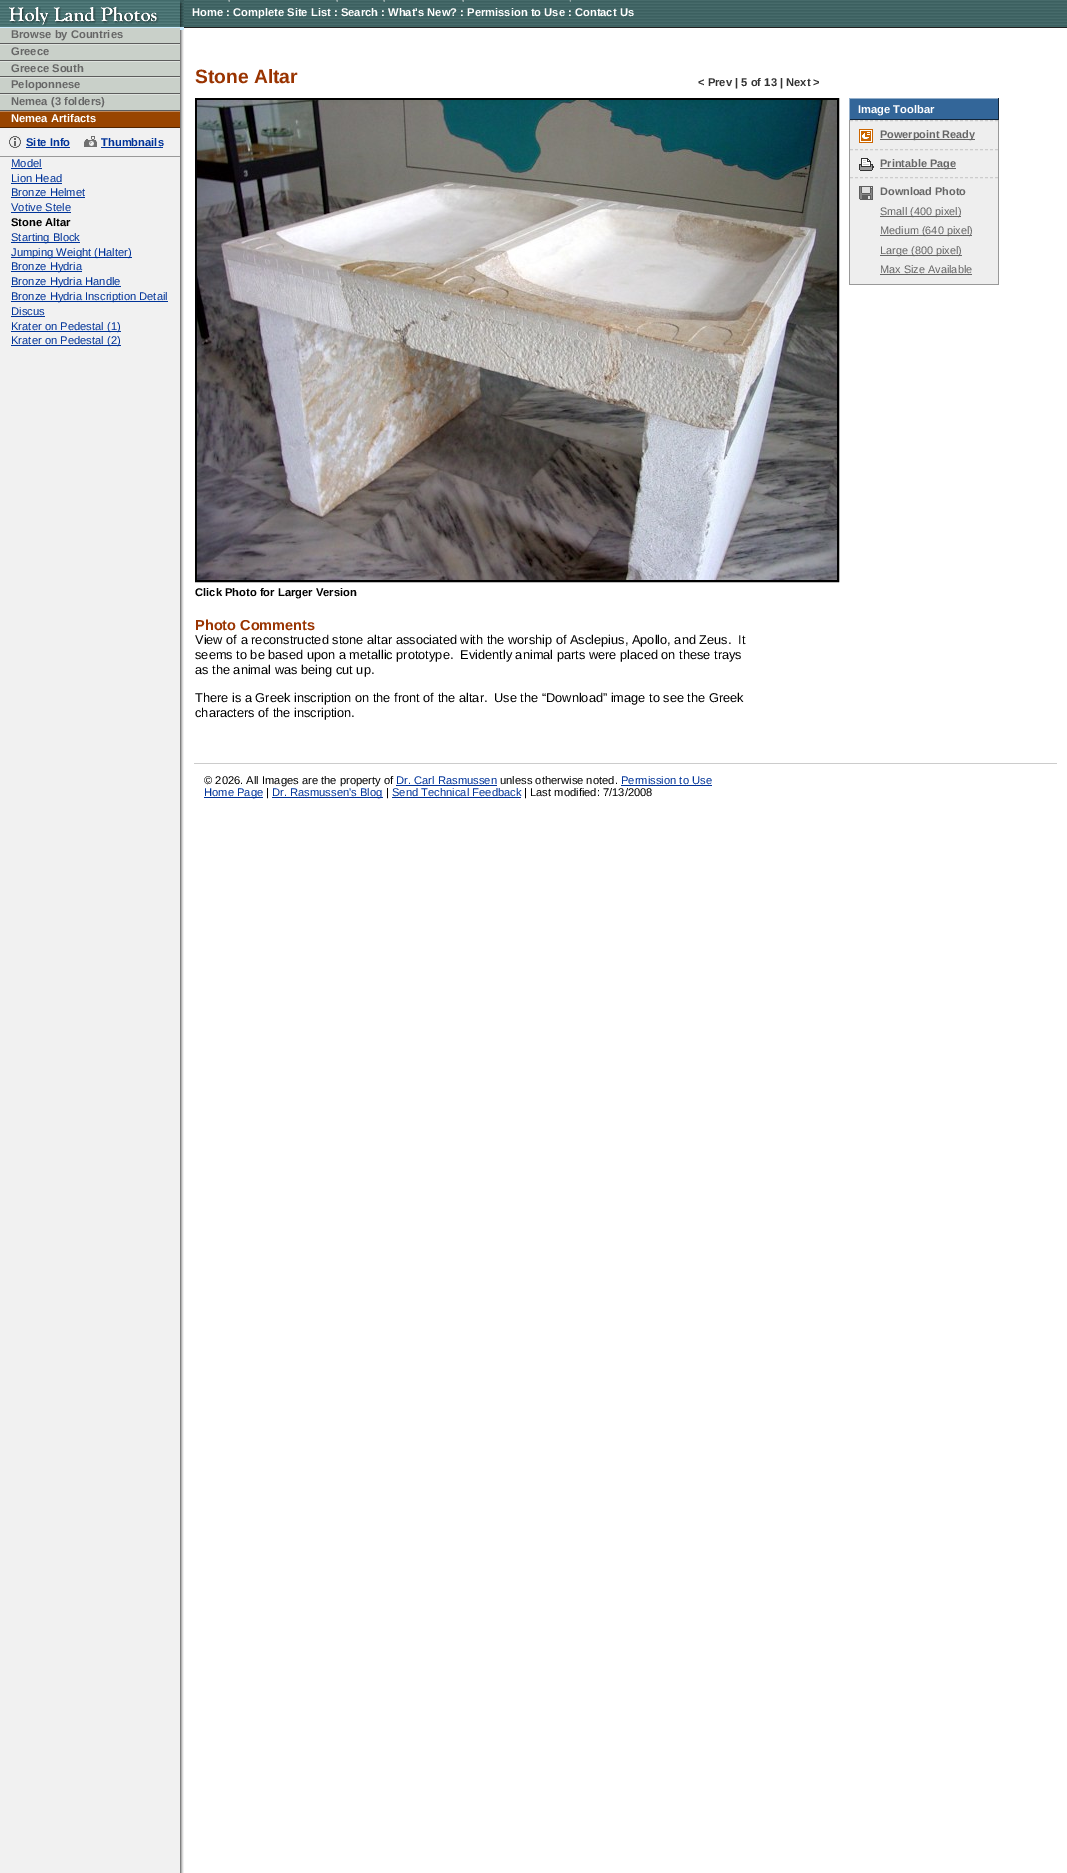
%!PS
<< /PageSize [1067 1873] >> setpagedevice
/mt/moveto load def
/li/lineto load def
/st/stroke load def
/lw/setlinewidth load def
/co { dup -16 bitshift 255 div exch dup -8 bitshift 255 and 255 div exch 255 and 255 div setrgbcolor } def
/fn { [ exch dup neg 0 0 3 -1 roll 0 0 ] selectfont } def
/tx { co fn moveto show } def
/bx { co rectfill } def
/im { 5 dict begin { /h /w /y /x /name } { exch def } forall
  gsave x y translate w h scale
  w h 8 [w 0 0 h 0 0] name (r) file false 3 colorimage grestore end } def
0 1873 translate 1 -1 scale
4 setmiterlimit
0 0 1067 1873 16#FFFFFF bx
(media/1.raw) 0 30 184 1843 im
(media/2.raw) 184 0 883 27 im
184 27 883 1 16#222222 bx
(media/3.raw) 0 0 184 27 im
0 27 184 3 16#CCECFF bx
(media/4.raw) 228 0 2 2 im
(media/4.raw) 336 0 2 2 im
(media/4.raw) 383 0 2 2 im
(media/4.raw) 462 0 2 2 im
(media/5.raw) 569 0 2 2 im
0 28 180 15 16#C9D0C9 bx
0 43 180 1 16#5C5C5C bx
0 45 180 15 16#C9D0C9 bx
0 44 180 1 16#DEE2DE bx
0 60 180 1 16#5C5C5C bx
0 62 180 14 16#C9D0C9 bx
0 61 180 1 16#DEE2DE bx
0 76 180 1 16#5C5C5C bx
0 78 180 15 16#C9D0C9 bx
0 77 180 1 16#DEE2DE bx
0 93 180 1 16#5C5C5C bx
0 95 180 15 16#C9D0C9 bx
0 94 180 1 16#DEE2DE bx
0 110 180 1 16#5C5C5C bx
0 112 180 15 16#994500 bx
0 111 180 1 16#BE885C bx
0 127 180 1 16#502400 bx
0 156 180 1 16#999999 bx
(media/6.raw) 9 136 12 12 im
26 147 44 1 16#003399 bx
(media/7.raw) 84 136 13 11 im
101 147 62 1 16#003399 bx
11 168 31 1 16#003399 bx
11 183 51 1 16#003399 bx
11 197 74 1 16#003399 bx
11 212 60 1 16#003399 bx
11 242 69 1 16#003399 bx
11 257 121 1 16#003399 bx
11 271 71 1 16#003399 bx
11 286 110 1 16#003399 bx
11 301 157 1 16#003399 bx
11 316 34 1 16#003399 bx
11 331 110 1 16#003399 bx
11 345 110 1 16#003399 bx
850 99 148 20 16#336699 bx
849 98 150 1 16#96B0CB bx
998 98 1 22 16#132538 bx
849 119 150 1 16#132538 bx
849 98 1 22 16#96B0CB bx
850 120 148 164 16#EEEEEE bx
998 120 1 165 16#999999 bx
849 284 150 1 16#999999 bx
849 120 1 165 16#999999 bx
(media/8.raw) 859 129 14 14 im
16#CCCCCC co
[3 2] 0 setdash
850 120.5 mt 998 120.5 li st
880 139 95 1 16#666666 bx
(media/9.raw) 859 158 15 13 im
16#CCCCCC co
850 149.5 mt 998 149.5 li st
880 168 76 1 16#666666 bx
(media/10.raw) 859 186 14 14 im
16#CCCCCC co
850 177.5 mt 998 177.5 li st
880 216 81 1 16#666666 bx
880 235 92 1 16#666666 bx
880 255 82 1 16#666666 bx
880 274 92 1 16#666666 bx
16#000000 co
2 lw
[] 0 setdash
196 99 642 482 rectstroke
(media/11.raw) 197 100 640 480 im
194 763 863 1 16#CCCCCC bx
396 785 101 1 16#003399 bx
621 785 91 1 16#003399 bx
204 797 59 1 16#003399 bx
272 797 111 1 16#003399 bx
392 797 129 1 16#003399 bx
(Home : Complete Site List : Search : What's New? : Permission to Use : Contact Us) 192 16 /LiberationSans-Bold 11.2 16#FFFFFF tx
(Browse by Countries) 11 38 /LiberationSans-Bold 11.2 16#666666 tx
(Greece) 11 55 /LiberationSans-Bold 11.2 16#666666 tx
(Greece South) 11 72 /LiberationSans-Bold 11.2 16#666666 tx
(Peloponnese) 11 88 /LiberationSans-Bold 11.2 16#666666 tx
(Nemea \(3 folders\)) 11 105 /LiberationSans-Bold 11.2 16#666666 tx
(Nemea Artifacts) 11 122 /LiberationSans-Bold 11.2 16#FFFFFF tx
(Site Info) 26 146 /LiberationSans-Bold 11.2 16#003399 tx
(Thumbnails) 101 146 /LiberationSans-Bold 11.2 16#003399 tx
(Model) 11 167 /LiberationSans-Regular 11.2 16#003399 tx
(Lion Head) 11 182 /LiberationSans-Regular 11.2 16#003399 tx
(Bronze Helmet) 11 196 /LiberationSans-Regular 11.2 16#003399 tx
(Votive Stele) 11 211 /LiberationSans-Regular 11.2 16#003399 tx
(Stone Altar) 11 226 /LiberationSans-Bold 11.2 16#000000 tx
(Starting Block) 11 241 /LiberationSans-Regular 11.2 16#003399 tx
(Jumping Weight \(Halter\)) 11 256 /LiberationSans-Regular 11.2 16#003399 tx
(Bronze Hydria) 11 270 /LiberationSans-Regular 11.2 16#003399 tx
(Bronze Hydria Handle) 11 285 /LiberationSans-Regular 11.2 16#003399 tx
(Bronze Hydria Inscription Detail) 11 300 /LiberationSans-Regular 11.2 16#003399 tx
(Discus) 11 315 /LiberationSans-Regular 11.2 16#003399 tx
(Krater on Pedestal \(1\)) 11 330 /LiberationSans-Regular 11.2 16#003399 tx
(Krater on Pedestal \(2\)) 11 344 /LiberationSans-Regular 11.2 16#003399 tx
(Stone Altar) 195 83 /LiberationSans-Bold 19.25 16#993300 tx
(< Prev | 5 of 13 | Next >) 698 86 /LiberationSans-Bold 11.2 16#333333 tx
(Image Toolbar) 858 113 /LiberationSans-Bold 11.2 16#FFFFFF tx
(Powerpoint Ready) 880 138 /LiberationSans-Bold 10.9 16#666666 tx
(Printable Page) 880 167 /LiberationSans-Bold 10.9 16#666666 tx
(Download Photo) 880 195 /LiberationSans-Bold 10.9 16#666666 tx
(Small \(400 pixel\)) 880 215 /LiberationSans-Regular 10.9 16#666666 tx
(Medium \(640 pixel\)) 880 234 /LiberationSans-Regular 10.9 16#666666 tx
(Large \(800 pixel\)) 880 254 /LiberationSans-Regular 10.9 16#666666 tx
(Max Size Available) 880 273 /LiberationSans-Regular 10.9 16#666666 tx
(Click Photo for Larger Version) 195 596 /LiberationSans-Bold 11.2 16#000000 tx
(Photo Comments) 195 630 /LiberationSans-Bold 14.5 16#993300 tx
(View of a reconstructed stone altar associated with the worship of Asclepius, Apollo, and Zeus.) 195 644 /LiberationSans-Regular 12.8 16#000000 tx
(It) 738 644 /LiberationSans-Regular 12.8 16#000000 tx
(seems to be based upon a metallic prototype.) 195 659 /LiberationSans-Regular 12.8 16#000000 tx
(Evidently animal parts were placed on these trays) 460 659 /LiberationSans-Regular 12.8 16#000000 tx
(as the animal was being cut up.) 195 674 /LiberationSans-Regular 12.8 16#000000 tx
(There is a Greek inscription on the front of the altar.) 195 702 /LiberationSans-Regular 12.8 16#000000 tx
(Use the “Download” image to see the Greek) 494 702 /LiberationSans-Regular 12.8 16#000000 tx
(characters of the inscription.) 195 717 /LiberationSans-Regular 12.8 16#000000 tx
(© 2026. All Images are the property of) 204 784 /LiberationSans-Regular 11.2 16#000000 tx
(Dr. Carl Rasmussen) 396 784 /LiberationSans-Regular 11.2 16#003399 tx
(unless otherwise noted.) 500 784 /LiberationSans-Regular 11.2 16#000000 tx
(Permission to Use) 621 784 /LiberationSans-Regular 11.2 16#003399 tx
(Home Page) 204 796 /LiberationSans-Regular 11.2 16#003399 tx
(|) 266 796 /LiberationSans-Regular 11.2 16#000000 tx
(Dr. Rasmussen's Blog) 272 796 /LiberationSans-Regular 11.2 16#003399 tx
(|) 386 796 /LiberationSans-Regular 11.2 16#000000 tx
(Send Technical Feedback) 392 796 /LiberationSans-Regular 11.2 16#003399 tx
(| Last modified: 7/13/2008) 524 796 /LiberationSans-Regular 11.2 16#000000 tx
showpage
